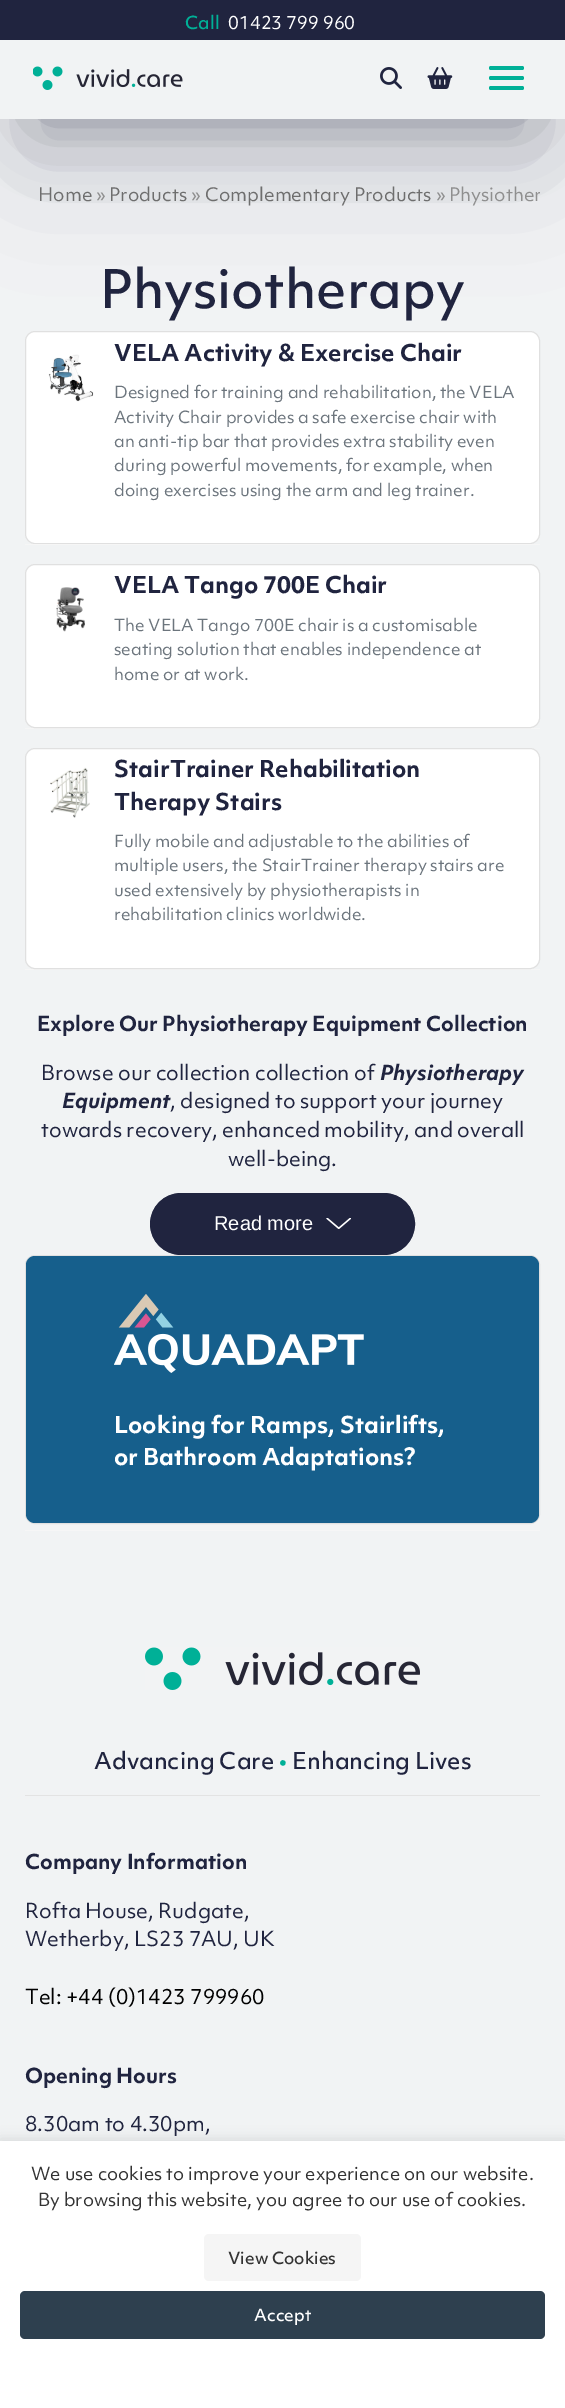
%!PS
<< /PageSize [565 2408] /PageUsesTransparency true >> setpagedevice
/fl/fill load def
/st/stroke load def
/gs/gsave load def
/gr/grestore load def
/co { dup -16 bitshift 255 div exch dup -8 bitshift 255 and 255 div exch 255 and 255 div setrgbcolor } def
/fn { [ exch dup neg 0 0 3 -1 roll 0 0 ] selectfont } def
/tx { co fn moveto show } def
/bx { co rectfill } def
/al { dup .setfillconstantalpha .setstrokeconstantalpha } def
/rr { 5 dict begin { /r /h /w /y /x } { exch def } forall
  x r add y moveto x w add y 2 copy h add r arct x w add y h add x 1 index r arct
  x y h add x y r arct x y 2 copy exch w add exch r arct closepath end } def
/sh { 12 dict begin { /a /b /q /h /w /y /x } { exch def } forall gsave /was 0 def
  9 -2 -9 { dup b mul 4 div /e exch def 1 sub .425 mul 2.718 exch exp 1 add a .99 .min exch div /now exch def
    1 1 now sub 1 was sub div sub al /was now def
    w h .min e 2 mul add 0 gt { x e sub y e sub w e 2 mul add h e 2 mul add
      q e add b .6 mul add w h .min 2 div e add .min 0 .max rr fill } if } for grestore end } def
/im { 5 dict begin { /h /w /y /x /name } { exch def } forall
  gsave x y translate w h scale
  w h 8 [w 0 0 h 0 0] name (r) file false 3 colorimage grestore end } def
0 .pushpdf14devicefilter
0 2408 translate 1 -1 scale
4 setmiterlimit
0 0 565 2408 16#F1F3F4 bx
16#000000 co
38 75 490 44 0 37.5 .3 sh
16#FFFFFF co
25.5 331.5 514 212 9.5 rr gs fl gr
16#E0E0E0 co
st
16#32325D co
25 88 515 68 0 62.5 .25 sh
0 40 565 79 16#F1F3F4 bx
0 0 565 40 16#20243F bx
(media/1.raw) 33 66 150 24 im
(media/2.raw) 380 67 22 22 im
(media/3.raw) 427 67 26 22 im
16#00B097 co
489 66 35 4 2 rr fl
489 76 35 4 2 rr fl
489 86 35 4 2 rr fl
25 544 515 1 16#F6F6F6 bx
(media/4.raw) 48 354 46 48 im
25 728 515 1 16#F6F6F6 bx
16#FFFFFF co
25.5 564.5 514 163 9.5 rr gs fl gr
16#E0E0E0 co
st
(media/5.raw) 56 587 29 45 im
25 969 515 1 16#F6F6F6 bx
16#FFFFFF co
25.5 748.5 514 220 9.5 rr gs fl gr
16#E0E0E0 co
st
(media/6.raw) 50 767 40 51 im
16#20243F co
150.5 1193.5 264 61 30.5 rr gs fl gr
st
(media/7.raw) 326 1218 25 11 im
25 1530 515 1 16#F6F6F6 bx
16#E0E0E0 co
25.5 1255.5 514 268 9.5 rr st
16#165F8C co
26 1256 513 267 9 rr fl
(media/8.raw) 114 1294 250 79 im
(media/9.raw) 145 1647 275 43 im
25 1795 515 1 16#E3E3E3 bx
16#000000 co
0 2139 565 267 0 6 .1 sh
0 2141 565 267 16#FFFFFF bx
16#F5F5F5 co
204 2234 157 47 5 rr fl
16#2E404F co
20 2291 525 48 5 rr fl
(Call) 185 29 /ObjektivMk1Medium-Medium 17.5 16#00B097 tx
(01423 799 960) 228 29 /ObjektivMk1-Regular 17.5 16#FFFFFF tx
(Home) 38 201 /ObjektivMk1-Regular 18 16#6E6E6E tx
(») 96 201 /ObjektivMk1-Regular 18 16#8F8F8F tx
(Products) 109 201 /ObjektivMk1-Regular 18 16#6E6E6E tx
(») 191 201 /ObjektivMk1-Regular 18 16#8F8F8F tx
(Complementary Products) 205 201 /ObjektivMk1-Regular 18 16#6E6E6E tx
(») 436 201 /ObjektivMk1-Regular 18 16#8F8F8F tx
gs
25 169 515 51 rectclip
(Physiother) 449 201 /ObjektivMk1-Regular 18 16#8F8F8F tx
gr
(Physiotherapy) 100 308 /ObjektivMk1Medium-Medium 51.25 16#20243F tx
(VELA Activity & Exercise Chair) 114 361 /ObjektivMk1-Bold 22.5 16#20243F tx
(Designed for training and rehabilitation, the VELA) 114 398 /ObjektivMk1-Regular 16.25 16#6C757D tx
(Activity Chair provides a safe exercise chair with) 114 423 /ObjektivMk1-Regular 16.25 16#6C757D tx
(an anti-tip bar that provides extra stability even) 114 447 /ObjektivMk1-Regular 16.25 16#6C757D tx
(during powerful movements, for example, when) 114 471 /ObjektivMk1-Regular 16.25 16#6C757D tx
(doing exercises using the arm and leg trainer.) 114 496 /ObjektivMk1-Regular 16.25 16#6C757D tx
(VELA Tango 700E Chair) 114 593 /ObjektivMk1-Bold 22.5 16#20243F tx
(The VELA Tango 700E chair is a customisable) 114 631 /ObjektivMk1-Regular 16.25 16#6C757D tx
(seating solution that enables independence at) 114 655 /ObjektivMk1-Regular 16.25 16#6C757D tx
(home or at work.) 114 680 /ObjektivMk1-Regular 16.25 16#6C757D tx
(StairTrainer Rehabilitation) 114 777 /ObjektivMk1-Bold 22.5 16#20243F tx
(Therapy Stairs) 114 810 /ObjektivMk1-Bold 22.5 16#20243F tx
(Fully mobile and adjustable to the abilities of) 114 847 /ObjektivMk1-Regular 16.25 16#6C757D tx
(multiple users, the StairTrainer therapy stairs are) 114 871 /ObjektivMk1-Regular 16.25 16#6C757D tx
(used extensively by physiotherapists in) 114 896 /ObjektivMk1-Regular 16.25 16#6C757D tx
(rehabilitation clinics worldwide.) 114 920 /ObjektivMk1-Regular 16.25 16#6C757D tx
(Explore Our Physiotherapy Equipment Collection) 37 1031 /ObjektivMk1-Bold 20 16#20243F tx
(Browse our collection collection of) 41 1080 /ObjektivMk1-Regular 20 16#20243F tx
(Physiotherapy) 380 1080 /ObjektivMk1-BoldItalic 20 16#20243F tx
(Equipment) 62 1108 /ObjektivMk1-BoldItalic 20 16#20243F tx
(, designed to support your journey) 170 1108 /ObjektivMk1-Regular 20 16#20243F tx
(towards recovery, enhanced mobility, and overall) 41 1137 /ObjektivMk1-Regular 20 16#20243F tx
(well-being.) 228 1166 /ObjektivMk1-Regular 20 16#20243F tx
(Read more) 214 1230 /LiberationSans-Regular 20 16#FFFFFF tx
(Looking for Ramps, Stairlifts,) 114 1433 /ObjektivMk1-Bold 22.5 16#FFFFFF tx
(or Bathroom Adaptations?) 114 1465 /ObjektivMk1-Bold 22.5 16#FFFFFF tx
(Advancing Care) 94 1769 /ObjektivMk1Medium-Medium 22.5 16#20243F tx
(•) 279 1769 /ObjektivMk1Medium-Medium 22.5 16#00B097 tx
(Enhancing Lives) 292 1769 /ObjektivMk1Medium-Medium 22.5 16#20243F tx
(Company Information) 25 1869 /ObjektivMk1-Bold 20 16#20243F tx
(Rofta House, Rudgate,) 25 1918 /ObjektivMk1-Regular 20 16#20243F tx
(Wetherby, LS23 7AU, UK) 25 1946 /ObjektivMk1-Regular 20 16#20243F tx
(Tel: +44 \(0\)1423 799960) 25 2004 /ObjektivMk1-Regular 20 16#000000 tx
(Opening Hours) 25 2083 /ObjektivMk1-Bold 20 16#20243F tx
(8.30am to 4.30pm,) 25 2131 /ObjektivMk1-Regular 20 16#20243F tx
(We use cookies to improve your experience on our website.) 31 2180 /ObjektivMk1-Regular 17.5 16#333333 tx
(By browsing this website, you agree to our use of cookies.) 38 2206 /ObjektivMk1-Regular 17.5 16#333333 tx
(View Cookies) 228 2264 /ObjektivMk1Medium-Medium 16.25 16#333333 tx
(Accept) 254 2321 /ObjektivMk1Medium-Medium 16.25 16#FFFFFF tx
.poppdf14devicefilter showpage
